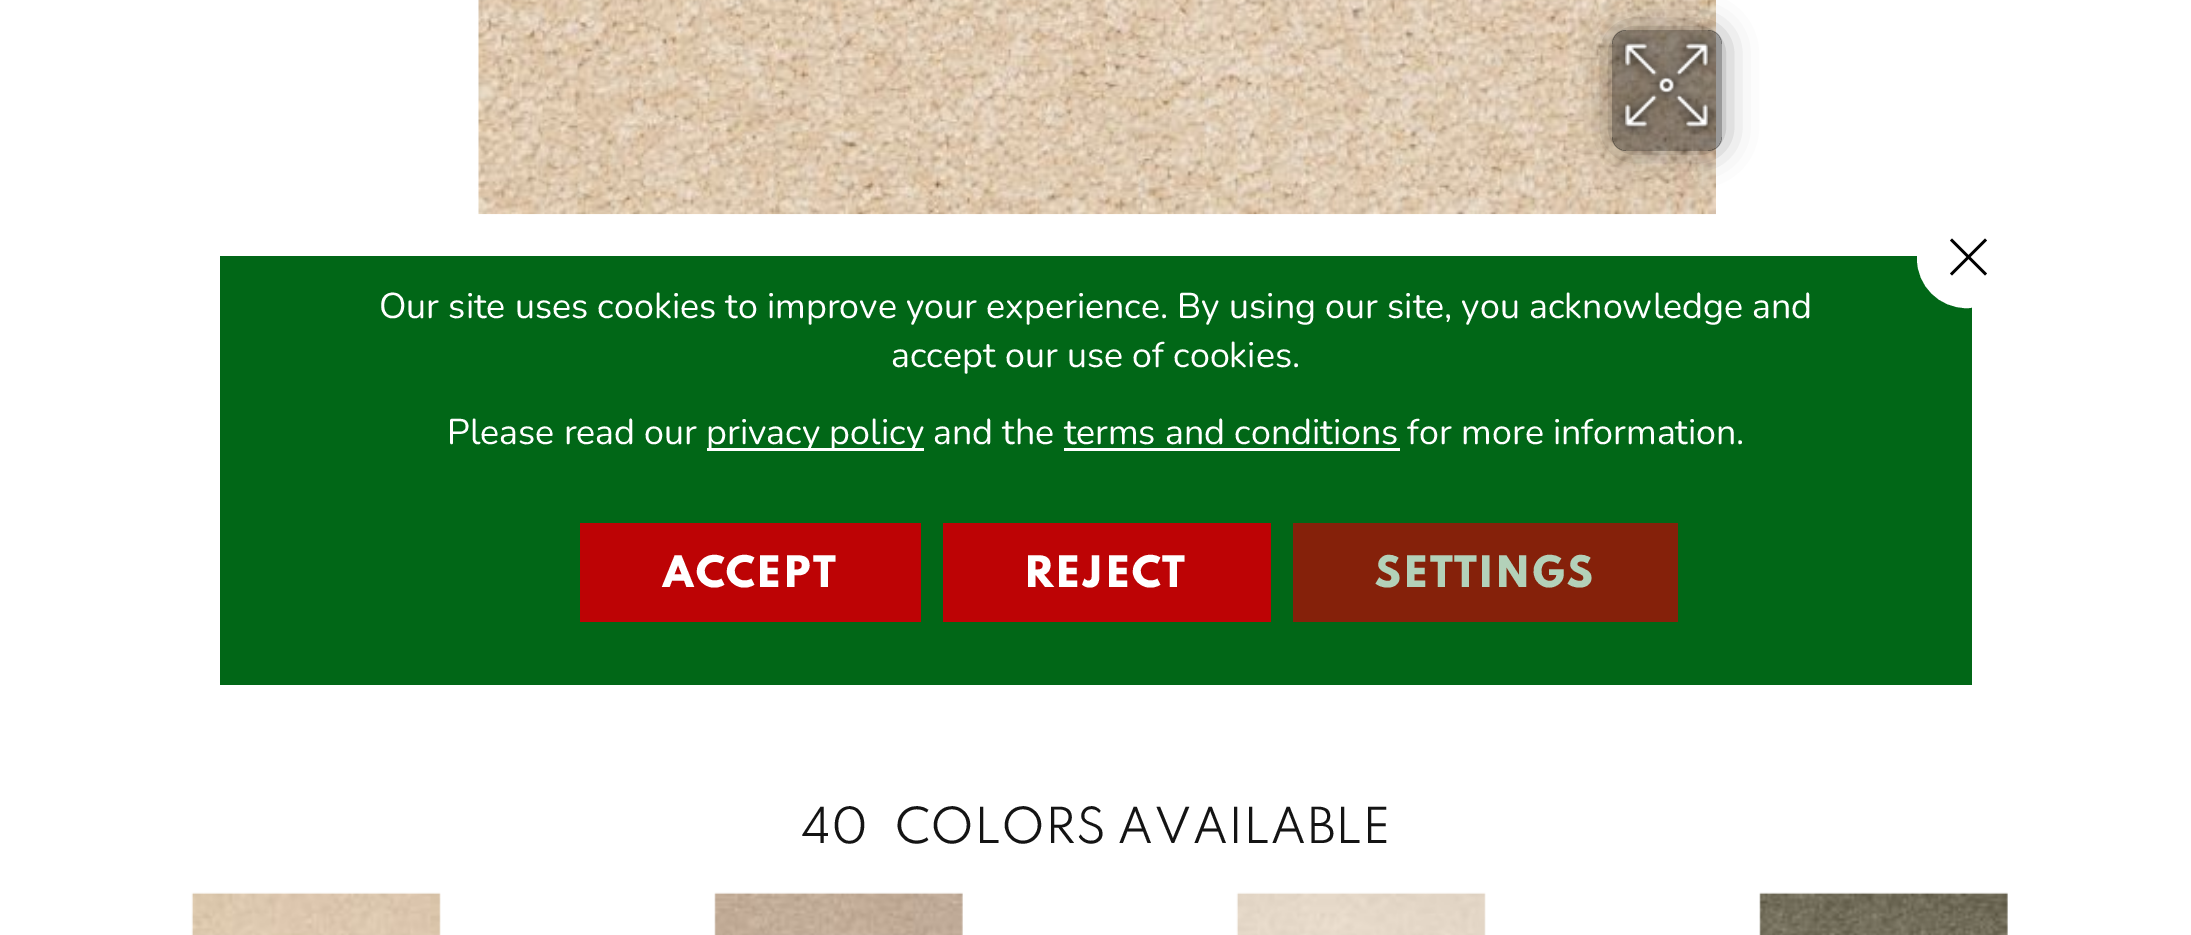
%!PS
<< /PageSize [2191 935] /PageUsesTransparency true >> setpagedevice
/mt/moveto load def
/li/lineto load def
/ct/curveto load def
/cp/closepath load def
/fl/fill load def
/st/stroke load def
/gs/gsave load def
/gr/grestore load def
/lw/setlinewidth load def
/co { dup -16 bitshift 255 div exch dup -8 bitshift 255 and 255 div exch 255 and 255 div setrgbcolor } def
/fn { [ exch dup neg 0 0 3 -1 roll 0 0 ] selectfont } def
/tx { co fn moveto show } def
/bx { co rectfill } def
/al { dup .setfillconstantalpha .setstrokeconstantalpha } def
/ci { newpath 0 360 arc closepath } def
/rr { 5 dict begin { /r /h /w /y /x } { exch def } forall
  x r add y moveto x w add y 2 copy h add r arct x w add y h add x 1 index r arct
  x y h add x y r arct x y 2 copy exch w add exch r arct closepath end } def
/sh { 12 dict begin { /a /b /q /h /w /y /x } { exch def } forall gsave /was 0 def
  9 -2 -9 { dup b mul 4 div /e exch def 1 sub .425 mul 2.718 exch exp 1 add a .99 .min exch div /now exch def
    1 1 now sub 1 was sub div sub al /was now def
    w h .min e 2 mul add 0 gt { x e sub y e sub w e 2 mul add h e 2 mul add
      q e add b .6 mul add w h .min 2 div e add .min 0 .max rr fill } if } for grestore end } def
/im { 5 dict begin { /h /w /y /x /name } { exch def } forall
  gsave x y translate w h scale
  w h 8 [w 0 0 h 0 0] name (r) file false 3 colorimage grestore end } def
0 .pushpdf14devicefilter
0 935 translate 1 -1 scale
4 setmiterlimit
0 0 2191 935 16#FFFFFF bx
220 256 1752 429 16#016717 bx
707 448 217 3 16#FFFFFF bx
1064 448 336 3 16#FFFFFF bx
1966.5 258.5 48 ci gs fl gr
3 lw
st
16#000000 co
1985 238.5 mt 1987 240.5 li 1952 275.5 li 1950 273.5 li cp fl
1950 240.5 mt 1952 238.5 li 1987 273.5 li 1985 275.5 li cp fl
580 523 341 99 16#BD0305 bx
943 523 328 99 16#BD0305 bx
1293 523 385 99 16#85210A bx
(media/1.raw) 478 0 1238 215 im
gs
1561 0 mt 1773 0 li 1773 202 li 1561 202 li cp 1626 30 mt 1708 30 li 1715.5 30 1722 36.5 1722 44 ct 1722 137 li 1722 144.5 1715.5 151 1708 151 ct 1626 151 li 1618.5 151 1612 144.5 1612 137 ct 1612 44 li 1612 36.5 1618.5 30 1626 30 ct cp eoclip newpath
16#000000 co
1612 30 110 121 14 16.5 .41 sh
gr
0.4 al
16#000000 co
1612 30 110 121 14 rr fl
1 al
(media/2.raw) 1616 35 101 100 im
(media/3.raw) 191 892 250 43 im
(media/4.raw) 714 892 249 43 im
(media/5.raw) 1236 892 250 43 im
(media/6.raw) 1759 892 249 43 im
(Our site uses cookies to improve your experience. By using our site, you acknowledge and) 379 318 /Nunito-Regular 35.75 16#FFFFFF tx
(accept our use of cookies.) 891 367 /Nunito-Regular 35.75 16#FFFFFF tx
(Please read our) 447 444 /Nunito-Regular 35.75 16#FFFFFF tx
(privacy policy and the terms and conditions for more information.) 706 444 /Nunito-Regular 35.75 16#FFFFFF tx
/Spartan-ExtraBold 38.5 fn
662 587 mt 1.5 0 (ACCEPT) ashow
1024 587 mt 1.5 0 (REJECT) ashow
16#B3D1B9 co
1375 587 mt 1.5 0 (SETTINGS) ashow
(40) 801 843 /Spartan-Regular 44 16#141414 tx
(COLORS AVAILABLE) 895 843 /Spartan-Regular 44 16#141414 tx
.poppdf14devicefilter showpage
